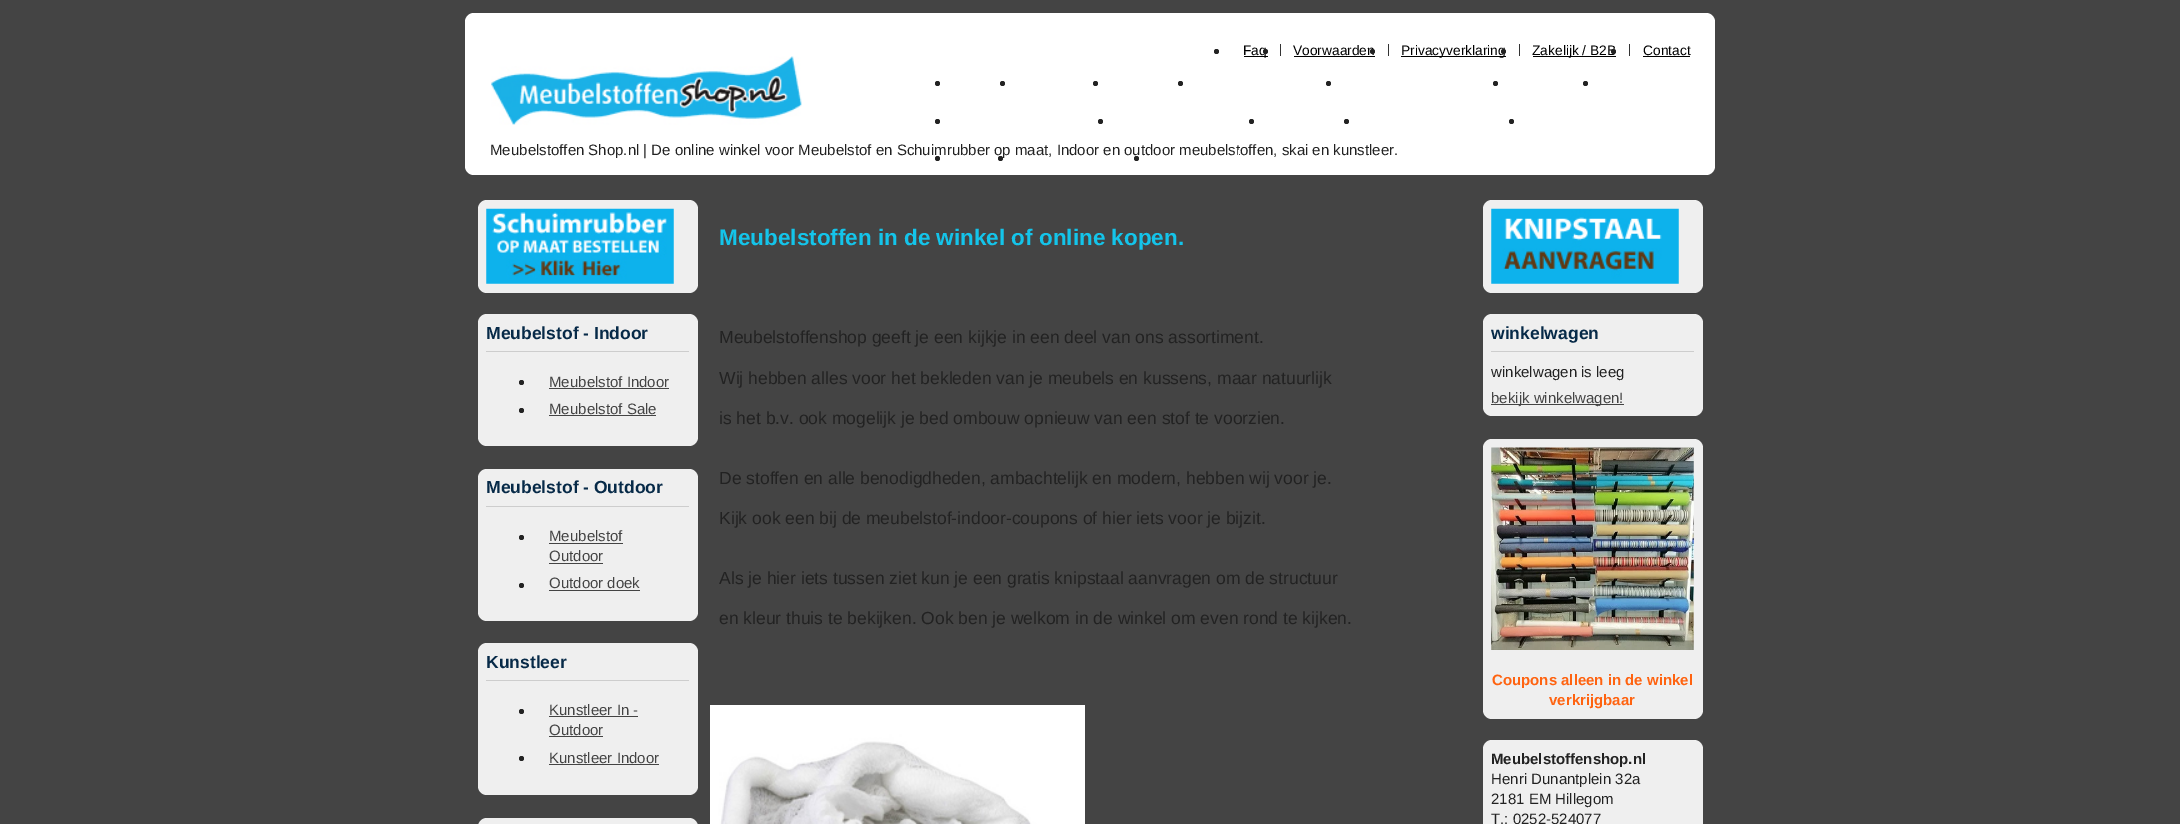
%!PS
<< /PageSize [2180 824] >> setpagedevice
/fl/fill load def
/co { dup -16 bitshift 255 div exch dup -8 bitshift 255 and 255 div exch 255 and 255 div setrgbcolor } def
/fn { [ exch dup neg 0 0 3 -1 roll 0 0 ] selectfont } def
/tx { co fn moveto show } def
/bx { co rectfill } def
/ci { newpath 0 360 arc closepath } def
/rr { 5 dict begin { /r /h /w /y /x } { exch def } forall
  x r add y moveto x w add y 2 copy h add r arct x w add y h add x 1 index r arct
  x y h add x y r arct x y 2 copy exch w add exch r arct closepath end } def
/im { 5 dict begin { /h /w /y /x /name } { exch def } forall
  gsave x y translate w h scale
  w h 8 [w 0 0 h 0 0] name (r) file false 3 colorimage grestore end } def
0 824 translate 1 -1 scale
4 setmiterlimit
0 0 2180 824 16#444444 bx
16#FFFFFF co
465 13 1250 162 9 rr fl
16#222222 co
1216.5 51.5 2.5 ci fl
1244 56 24 1 16#000000 bx
1280 44 1 12 16#333333 bx
1294 56 81 1 16#000000 bx
1388 44 1 12 16#333333 bx
1401 56 105 1 16#000000 bx
1519 44 1 12 16#333333 bx
1533 56 83 1 16#000000 bx
1629 44 1 12 16#333333 bx
1643 56 47 1 16#000000 bx
(media/1.raw) 491 56 311 69 im
16#222222 co
937.5 83.5 2.5 ci fl
1002.5 83.5 2.5 ci fl
1095.5 83.5 2.5 ci fl
1180.5 83.5 2.5 ci fl
1328.5 83.5 2.5 ci fl
1495.5 83.5 2.5 ci fl
1585.5 83.5 2.5 ci fl
937.5 121.5 2.5 ci fl
1100.5 121.5 2.5 ci fl
1251.5 121.5 2.5 ci fl
1346.5 121.5 2.5 ci fl
1511.5 121.5 2.5 ci fl
937.5 158.5 2.5 ci fl
1000.5 158.5 2.5 ci fl
1136.5 158.5 2.5 ci fl
16#EFEFEF co
478 200 220 93 9 rr fl
(media/2.raw) 486 208 188 76 im
478 314 220 132 9 rr fl
486 351 203 1 16#CDCDCD bx
16#222222 co
521.5 382.5 2.5 ci fl
549 388 120 1 16#444444 bx
16#222222 co
521.5 410.5 2.5 ci fl
549 415 107 1 16#444444 bx
16#EFEFEF co
478 469 220 152 9 rr fl
486 506 203 1 16#CDCDCD bx
16#222222 co
521.5 537.5 2.5 ci fl
549 543 74 1 16#444444 bx
549 563 54 1 16#444444 bx
16#222222 co
521.5 585.5 2.5 ci fl
549 590 91 1 16#444444 bx
16#EFEFEF co
478 643 220 152 9 rr fl
486 680 203 1 16#CDCDCD bx
16#222222 co
521.5 711.5 2.5 ci fl
549 716 89 1 16#444444 bx
549 736 54 1 16#444444 bx
16#222222 co
521.5 758.5 2.5 ci fl
549 764 110 1 16#444444 bx
16#EFEFEF co
478 818 220 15 9 rr fl
(media/3.raw) 710 705 375 119 im
1483 200 220 93 9 rr fl
(media/4.raw) 1491 208 188 76 im
1483 314 220 102 9 rr fl
1491 351 203 1 16#CDCDCD bx
1491 404 133 1 16#444444 bx
16#EFEFEF co
1483 439 220 280 9 rr fl
(media/5.raw) 1491 447 203 203 im
1483 740 220 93 9 rr fl
(Faq) 1243 55 /LiberationSans-Regular 13.75 16#000000 tx
16#222222 co
1265.5 51.5 2.5 ci fl
(Voorwaarden) 1293 55 /LiberationSans-Regular 13.75 16#000000 tx
16#222222 co
1372.5 51.5 2.5 ci fl
(Privacyverklaring) 1401 55 /LiberationSans-Regular 13.75 16#000000 tx
16#222222 co
1503.5 51.5 2.5 ci fl
(Zakelijk / B2B) 1532 55 /LiberationSans-Regular 13.75 16#000000 tx
16#222222 co
1613.5 51.5 2.5 ci fl
(Contact) 1643 55 /LiberationSans-Regular 13.75 16#000000 tx
(Meubelstoffen Shop.nl | De online winkel voor Meubelstof en Schuimrubber op maat, Indoor en outdoor meubelstoffen, skai en kunstleer.) 490 155 /LiberationSans-Regular 15 16#222222 tx
1150 150 1 5 16#FFFFFF bx
1238 150 1 6 16#FFFFFF bx
(Meubelstof - Indoor) 486 339 /LiberationSans-Bold 17.5 16#072A48 tx
(Meubelstof Indoor) 549 387 /LiberationSans-Regular 15 16#444444 tx
(Meubelstof Sale) 549 414 /LiberationSans-Regular 15 16#444444 tx
(Meubelstof - Outdoor) 486 493 /LiberationSans-Bold 17.5 16#072A48 tx
(Meubelstof) 549 541 /LiberationSans-Regular 15 16#444444 tx
(Outdoor) 549 561 /LiberationSans-Regular 15 16#444444 tx
(Outdoor doek) 549 588 /LiberationSans-Regular 15 16#444444 tx
(Kunstleer) 486 668 /LiberationSans-Bold 17.5 16#072A48 tx
(Kunstleer In -) 549 715 /LiberationSans-Regular 15 16#444444 tx
(Outdoor) 549 735 /LiberationSans-Regular 15 16#444444 tx
(Kunstleer Indoor) 549 763 /LiberationSans-Regular 15 16#444444 tx
(Meubelstoffen in de winkel of online kopen.) 719 245 /LiberationSans-Bold 22.5 16#14C4EA tx
(Meubelstoffenshop geeft je een kijkje in een deel van ons assortiment.) 719 343 /LiberationSans-Regular 17.5 16#222222 tx
(Wij hebben alles voor het bekleden van je meubels en kussens, maar natuurlijk) 719 384 /LiberationSans-Regular 17.5 16#222222 tx
(is het b.v. ook mogelijk je bed ombouw opnieuw van een stof te voorzien.) 719 424 /LiberationSans-Regular 17.5 16#222222 tx
(De stoffen en alle benodigdheden, ambachtelijk en modern, hebben wij voor je.) 719 484 /LiberationSans-Regular 17.5 16#222222 tx
(Kijk ook een bij de meubelstof-indoor-coupons of hier iets voor je bijzit.) 719 524 /LiberationSans-Regular 17.5 16#222222 tx
(Als je hier iets tussen ziet kun je een gratis knipstaal aanvragen om de structuur) 719 584 /LiberationSans-Regular 17.5 16#222222 tx
(en kleur thuis te bekijken. Ook ben je welkom in de winkel om even rond te kijken.) 719 624 /LiberationSans-Regular 17.5 16#222222 tx
(winkelwagen) 1491 339 /LiberationSans-Bold 17.5 16#072A48 tx
(winkelwagen is leeg) 1491 377 /LiberationSans-Regular 15 16#222222 tx
(bekijk winkelwagen!) 1491 403 /LiberationSans-Regular 15 16#444444 tx
(Coupons alleen in de winkel) 1492 685 /LiberationSans-Bold 15 16#FF6310 tx
(verkrijgbaar) 1549 705 /LiberationSans-Bold 15 16#FF6310 tx
(Meubelstoffenshop.nl) 1491 764 /LiberationSans-Bold 15 16#222222 tx
(Henri Dunantplein 32a) 1491 784 /LiberationSans-Regular 15 16#222222 tx
(2181 EM Hillegom) 1491 804 /LiberationSans-Regular 15 16#222222 tx
(T.: 0252-524077) 1491 824 /LiberationSans-Regular 15 16#222222 tx
showpage
